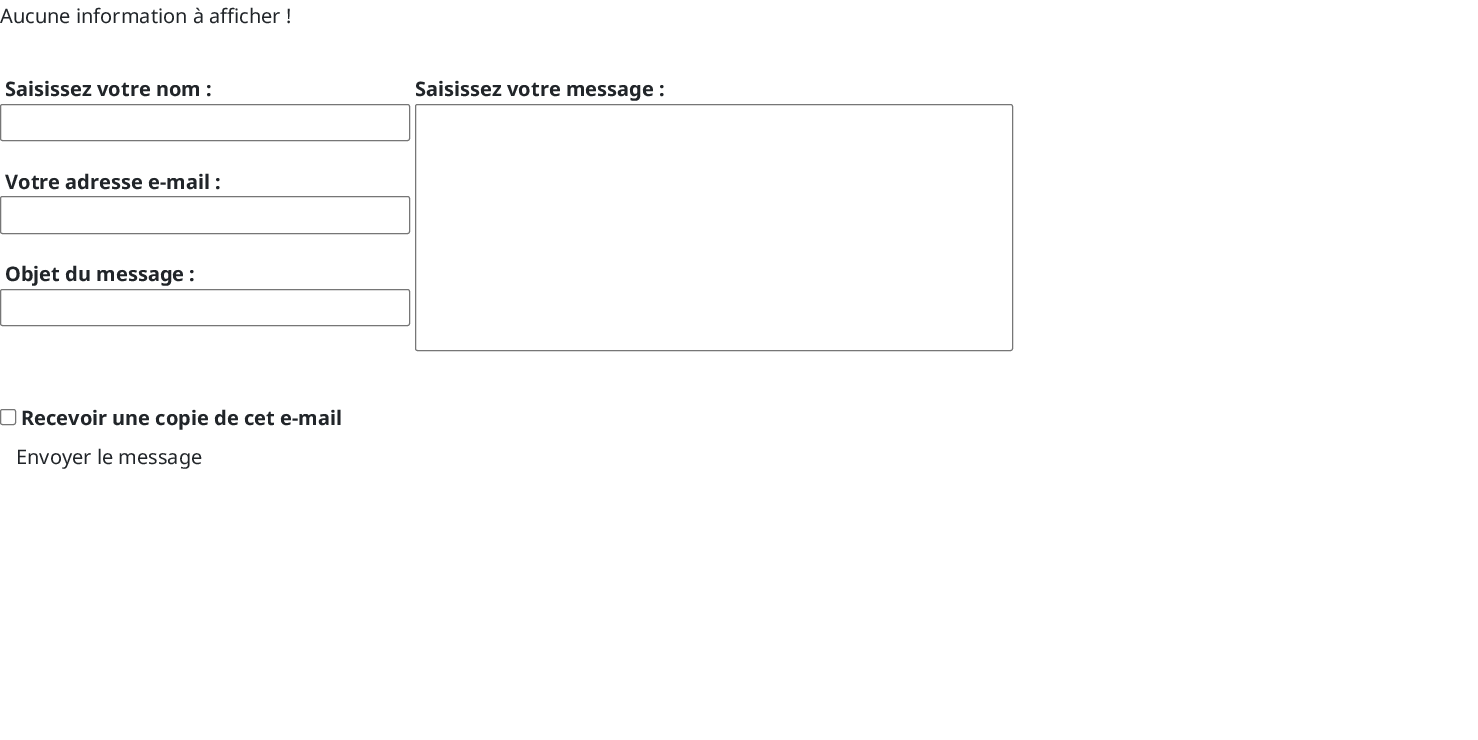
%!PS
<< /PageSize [1478 740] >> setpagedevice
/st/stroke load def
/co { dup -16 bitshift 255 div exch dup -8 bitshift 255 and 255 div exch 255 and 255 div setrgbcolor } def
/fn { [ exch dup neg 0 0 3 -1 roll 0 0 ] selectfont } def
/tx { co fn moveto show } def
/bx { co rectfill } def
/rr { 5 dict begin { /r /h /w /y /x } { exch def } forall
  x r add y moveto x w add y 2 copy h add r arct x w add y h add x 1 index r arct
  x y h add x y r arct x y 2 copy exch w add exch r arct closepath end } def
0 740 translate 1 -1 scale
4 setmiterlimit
0 0 1478 740 16#FFFFFF bx
16#767676 co
.5 104.5 409 36 2 rr st
.5 196.5 409 37 2 rr st
.5 289.5 409 36 2 rr st
415.5 104.5 597 246 2 rr st
.5 409.5 15 15 2 rr st
(Aucune information à afficher !) 0 23 /NotoSans-Regular 20 16#212529 tx
(Saisissez votre nom :) 5 96 /NotoSans-Bold 20 16#212529 tx
(Votre adresse e-mail :) 5 189 /NotoSans-Bold 20 16#212529 tx
(Objet du message :) 5 281 /NotoSans-Bold 20 16#212529 tx
(Saisissez votre message :) 415 96 /NotoSans-Bold 20 16#212529 tx
(Recevoir une copie de cet e-mail) 21 425 /NotoSans-Bold 20 16#212529 tx
(Envoyer le message) 16 464 /NotoSans-Regular 20 16#212529 tx
showpage
